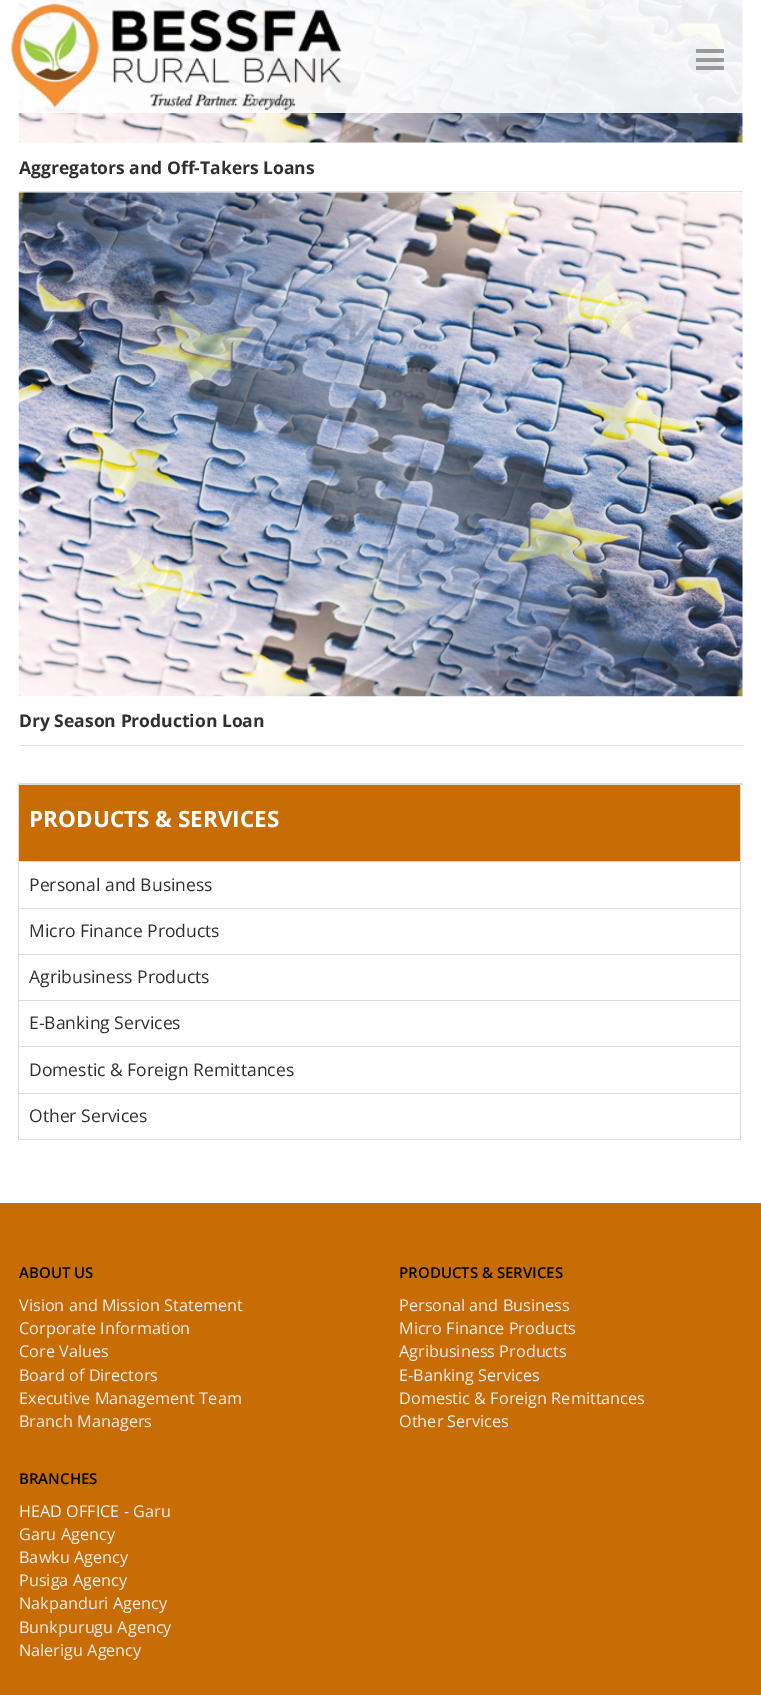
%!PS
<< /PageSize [761 1695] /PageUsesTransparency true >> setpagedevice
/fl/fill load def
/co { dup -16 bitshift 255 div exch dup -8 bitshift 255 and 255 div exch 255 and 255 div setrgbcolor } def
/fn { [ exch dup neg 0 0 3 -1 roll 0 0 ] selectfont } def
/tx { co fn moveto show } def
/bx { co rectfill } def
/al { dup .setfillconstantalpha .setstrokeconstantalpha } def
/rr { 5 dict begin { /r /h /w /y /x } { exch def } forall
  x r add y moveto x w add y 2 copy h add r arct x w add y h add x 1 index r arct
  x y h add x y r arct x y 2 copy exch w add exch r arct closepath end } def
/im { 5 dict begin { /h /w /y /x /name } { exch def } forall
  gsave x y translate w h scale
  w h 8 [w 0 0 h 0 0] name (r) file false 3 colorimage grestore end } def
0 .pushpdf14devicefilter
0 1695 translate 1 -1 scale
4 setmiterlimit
0 0 761 1695 16#FFFFFF bx
(media/2.raw) 18 0 725 143 im
0.91 al
18 0 725 113 16#FFFFFF bx
1 al
(media/1.raw) 11 3 331 108 im
16#999999 co
696 49 28 4 1 rr fl
696 58 28 4 1 rr fl
696 66 28 4 1 rr fl
19 191 724 1 16#E0DFE3 bx
(media/3.raw) 18 192 725 505 im
19 745 724 1 16#E0DFE3 bx
18 784 725 1 16#DDDDDD bx
19 783 724 1 16#DDDDDD bx
740 784 1 356 16#DDDDDD bx
18 1139 723 1 16#DDDDDD bx
18 784 1 356 16#DDDDDD bx
19 785 721 76 16#C86C06 bx
18 861 723 1 16#DDDDDD bx
18 908 723 1 16#DDDDDD bx
18 954 723 1 16#DDDDDD bx
18 1000 723 1 16#DDDDDD bx
18 1046 723 1 16#DDDDDD bx
18 1093 723 1 16#DDDDDD bx
0 1203 761 492 16#C86C06 bx
(Aggregators and Off-Takers Loans) 19 174 /OpenSans-Bold 17.5 16#303030 tx
(Dry Season Production Loan) 19 727 /OpenSans-Bold 17.5 16#303030 tx
(PRODUCTS & SERVICES) 29 827 /OpenSans-Bold 22.5 16#FFFFFF tx
(Personal and Business) 29 891 /OpenSans-Regular 17.5 16#303030 tx
(Micro Finance Products) 29 937 /OpenSans-Regular 17.5 16#303030 tx
(Agribusiness Products) 29 983 /OpenSans-Regular 17.5 16#303030 tx
(E-Banking Services) 29 1029 /OpenSans-Regular 17.5 16#303030 tx
(Domestic & Foreign Remittances) 29 1076 /OpenSans-Regular 17.5 16#303030 tx
(Other Services) 29 1122 /OpenSans-Regular 17.5 16#303030 tx
(ABOUT US) 19 1278 /OpenSans-SemiBold 15 16#000000 tx
(Vision and Mission Statement) 19 1311 /OpenSans-Regular 16.25 16#F0F0F0 tx
(Corporate Information) 19 1334 /OpenSans-Regular 16.25 16#F0F0F0 tx
(Core Values) 19 1357 /OpenSans-Regular 16.25 16#F0F0F0 tx
(Board of Directors) 19 1381 /OpenSans-Regular 16.25 16#F0F0F0 tx
(Executive Management Team) 19 1404 /OpenSans-Regular 16.25 16#F0F0F0 tx
(Branch Managers) 19 1427 /OpenSans-Regular 16.25 16#F0F0F0 tx
(PRODUCTS & SERVICES) 399 1278 /OpenSans-SemiBold 15 16#000000 tx
(Personal and Business) 399 1311 /OpenSans-Regular 16.25 16#F0F0F0 tx
(Micro Finance Products) 399 1334 /OpenSans-Regular 16.25 16#F0F0F0 tx
(Agribusiness Products) 399 1357 /OpenSans-Regular 16.25 16#F0F0F0 tx
(E-Banking Services) 399 1381 /OpenSans-Regular 16.25 16#F0F0F0 tx
(Domestic & Foreign Remittances) 399 1404 /OpenSans-Regular 16.25 16#F0F0F0 tx
(Other Services) 399 1427 /OpenSans-Regular 16.25 16#F0F0F0 tx
(BRANCHES) 19 1484 /OpenSans-SemiBold 15 16#000000 tx
(HEAD OFFICE - Garu) 19 1517 /OpenSans-Regular 16.25 16#F0F0F0 tx
(Garu Agency) 19 1540 /OpenSans-Regular 16.25 16#F0F0F0 tx
(Bawku Agency) 19 1563 /OpenSans-Regular 16.25 16#F0F0F0 tx
(Pusiga Agency) 19 1586 /OpenSans-Regular 16.25 16#F0F0F0 tx
(Nakpanduri Agency) 19 1609 /OpenSans-Regular 16.25 16#F0F0F0 tx
(Bunkpurugu Agency) 19 1633 /OpenSans-Regular 16.25 16#F0F0F0 tx
(Nalerigu Agency) 19 1656 /OpenSans-Regular 16.25 16#F0F0F0 tx
.poppdf14devicefilter showpage
